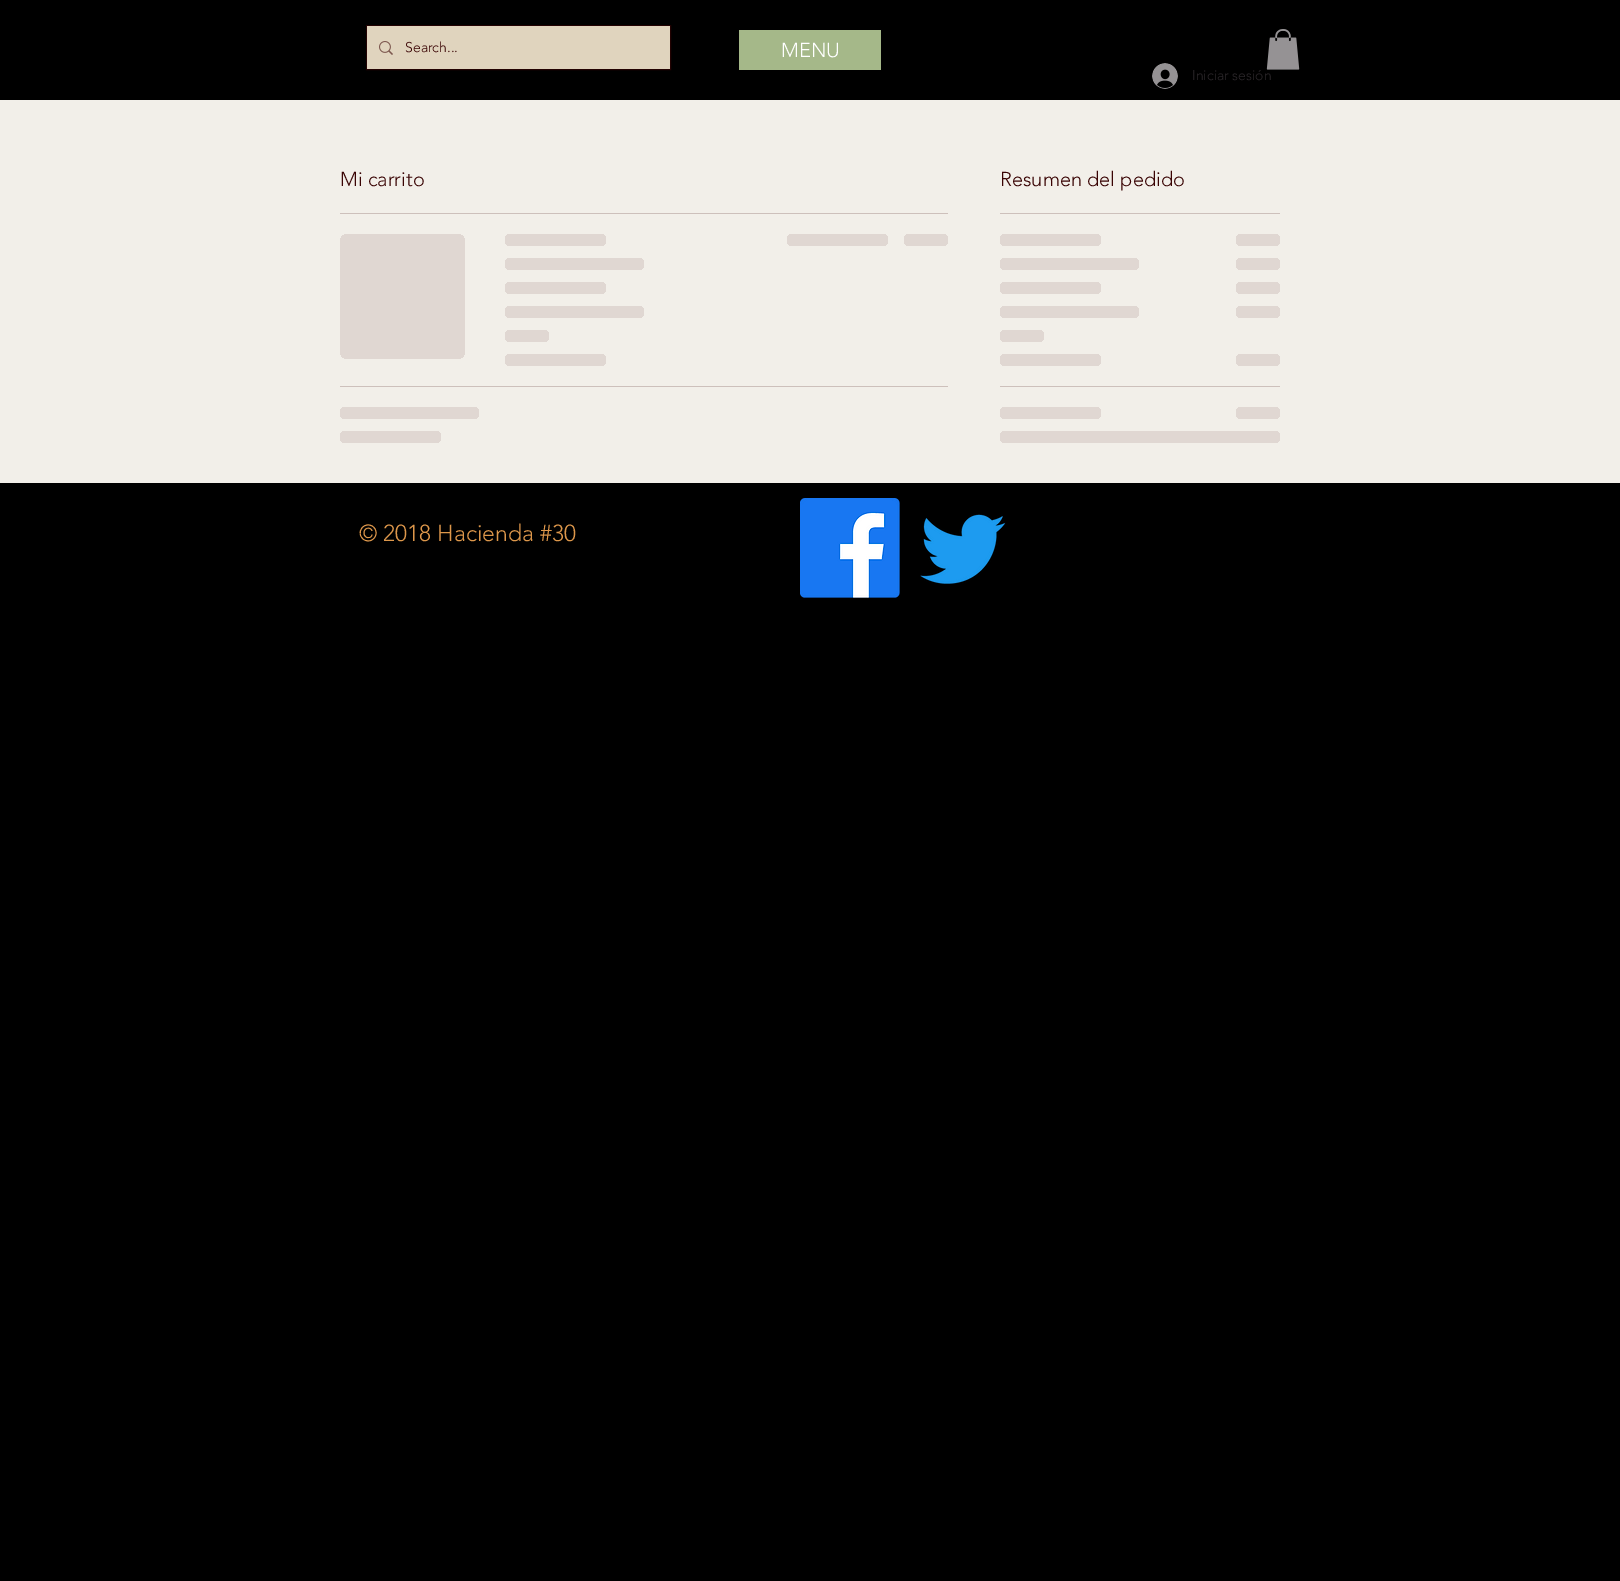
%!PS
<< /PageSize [1620 1581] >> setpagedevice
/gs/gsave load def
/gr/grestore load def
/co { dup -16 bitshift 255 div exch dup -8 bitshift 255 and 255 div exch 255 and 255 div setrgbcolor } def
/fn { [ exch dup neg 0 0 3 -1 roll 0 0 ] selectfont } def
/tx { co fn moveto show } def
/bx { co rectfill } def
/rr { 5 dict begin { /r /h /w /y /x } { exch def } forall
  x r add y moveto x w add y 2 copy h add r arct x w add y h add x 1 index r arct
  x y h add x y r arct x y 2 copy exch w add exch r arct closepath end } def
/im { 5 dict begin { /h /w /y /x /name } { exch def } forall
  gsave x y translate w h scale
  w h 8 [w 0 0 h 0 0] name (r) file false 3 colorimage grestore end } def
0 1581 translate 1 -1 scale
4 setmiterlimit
0 0 1620 1581 16#000000 bx
16#230202 co
366.5 25.5 304 44 rectstroke
367 26 303 43 16#E0D4BE bx
(media/1.raw) 379 41 14 14 im
739 30 142 40 16#A5B889 bx
(media/2.raw) 1266 29 34 41 im
(media/3.raw) 1152 63 26 26 im
0 100 1620 383 16#F2EFE9 bx
340 213 608 1 16#CDC0BB bx
gs 340 234 125 125 8 rr clip newpath
<< /ShadingType 2 /ColorSpace /DeviceRGB /Coords [340 297 840 297] /Extend [true true] /Function << /FunctionType 3 /Domain [0 1] /Functions [<< /FunctionType 2 /Domain [0 1] /C0 [.878 .843 .824] /C1 [.878 .843 .824] /N 1 >> << /FunctionType 2 /Domain [0 1] /C0 [.878 .843 .824] /C1 [.804 .753 .733] /N 1 >> << /FunctionType 2 /Domain [0 1] /C0 [.804 .753 .733] /C1 [.878 .843 .824] /N 1 >> << /FunctionType 2 /Domain [0 1] /C0 [.878 .843 .824] /C1 [.878 .843 .824] /N 1 >>] /Bounds [.25 .37 .63] /Encode [0 1 0 1 0 1 0 1] >> >> shfill gr
gs 505 234 101 12 6 rr clip newpath
<< /ShadingType 2 /ColorSpace /DeviceRGB /Coords [505 240 909 240] /Extend [true true] /Function << /FunctionType 3 /Domain [0 1] /Functions [<< /FunctionType 2 /Domain [0 1] /C0 [.878 .843 .824] /C1 [.878 .843 .824] /N 1 >> << /FunctionType 2 /Domain [0 1] /C0 [.878 .843 .824] /C1 [.804 .753 .733] /N 1 >> << /FunctionType 2 /Domain [0 1] /C0 [.804 .753 .733] /C1 [.878 .843 .824] /N 1 >> << /FunctionType 2 /Domain [0 1] /C0 [.878 .843 .824] /C1 [.878 .843 .824] /N 1 >>] /Bounds [.25 .37 .63] /Encode [0 1 0 1 0 1 0 1] >> >> shfill gr
gs 505 258 139 12 6 rr clip newpath
<< /ShadingType 2 /ColorSpace /DeviceRGB /Coords [505 264 1061 264] /Extend [true true] /Function << /FunctionType 3 /Domain [0 1] /Functions [<< /FunctionType 2 /Domain [0 1] /C0 [.878 .843 .824] /C1 [.878 .843 .824] /N 1 >> << /FunctionType 2 /Domain [0 1] /C0 [.878 .843 .824] /C1 [.804 .753 .733] /N 1 >> << /FunctionType 2 /Domain [0 1] /C0 [.804 .753 .733] /C1 [.878 .843 .824] /N 1 >> << /FunctionType 2 /Domain [0 1] /C0 [.878 .843 .824] /C1 [.878 .843 .824] /N 1 >>] /Bounds [.25 .37 .63] /Encode [0 1 0 1 0 1 0 1] >> >> shfill gr
gs 505 282 101 12 6 rr clip newpath
<< /ShadingType 2 /ColorSpace /DeviceRGB /Coords [505 288 909 288] /Extend [true true] /Function << /FunctionType 3 /Domain [0 1] /Functions [<< /FunctionType 2 /Domain [0 1] /C0 [.878 .843 .824] /C1 [.878 .843 .824] /N 1 >> << /FunctionType 2 /Domain [0 1] /C0 [.878 .843 .824] /C1 [.804 .753 .733] /N 1 >> << /FunctionType 2 /Domain [0 1] /C0 [.804 .753 .733] /C1 [.878 .843 .824] /N 1 >> << /FunctionType 2 /Domain [0 1] /C0 [.878 .843 .824] /C1 [.878 .843 .824] /N 1 >>] /Bounds [.25 .37 .63] /Encode [0 1 0 1 0 1 0 1] >> >> shfill gr
gs 505 306 139 12 6 rr clip newpath
<< /ShadingType 2 /ColorSpace /DeviceRGB /Coords [505 312 1061 312] /Extend [true true] /Function << /FunctionType 3 /Domain [0 1] /Functions [<< /FunctionType 2 /Domain [0 1] /C0 [.878 .843 .824] /C1 [.878 .843 .824] /N 1 >> << /FunctionType 2 /Domain [0 1] /C0 [.878 .843 .824] /C1 [.804 .753 .733] /N 1 >> << /FunctionType 2 /Domain [0 1] /C0 [.804 .753 .733] /C1 [.878 .843 .824] /N 1 >> << /FunctionType 2 /Domain [0 1] /C0 [.878 .843 .824] /C1 [.878 .843 .824] /N 1 >>] /Bounds [.25 .37 .63] /Encode [0 1 0 1 0 1 0 1] >> >> shfill gr
gs 505 330 44 12 6 rr clip newpath
<< /ShadingType 2 /ColorSpace /DeviceRGB /Coords [505 336 681 336] /Extend [true true] /Function << /FunctionType 3 /Domain [0 1] /Functions [<< /FunctionType 2 /Domain [0 1] /C0 [.878 .843 .824] /C1 [.878 .843 .824] /N 1 >> << /FunctionType 2 /Domain [0 1] /C0 [.878 .843 .824] /C1 [.804 .753 .733] /N 1 >> << /FunctionType 2 /Domain [0 1] /C0 [.804 .753 .733] /C1 [.878 .843 .824] /N 1 >> << /FunctionType 2 /Domain [0 1] /C0 [.878 .843 .824] /C1 [.878 .843 .824] /N 1 >>] /Bounds [.25 .37 .63] /Encode [0 1 0 1 0 1 0 1] >> >> shfill gr
gs 505 354 101 12 6 rr clip newpath
<< /ShadingType 2 /ColorSpace /DeviceRGB /Coords [505 360 909 360] /Extend [true true] /Function << /FunctionType 3 /Domain [0 1] /Functions [<< /FunctionType 2 /Domain [0 1] /C0 [.878 .843 .824] /C1 [.878 .843 .824] /N 1 >> << /FunctionType 2 /Domain [0 1] /C0 [.878 .843 .824] /C1 [.804 .753 .733] /N 1 >> << /FunctionType 2 /Domain [0 1] /C0 [.804 .753 .733] /C1 [.878 .843 .824] /N 1 >> << /FunctionType 2 /Domain [0 1] /C0 [.878 .843 .824] /C1 [.878 .843 .824] /N 1 >>] /Bounds [.25 .37 .63] /Encode [0 1 0 1 0 1 0 1] >> >> shfill gr
gs 787 234 101 12 6 rr clip newpath
<< /ShadingType 2 /ColorSpace /DeviceRGB /Coords [787 240 1191 240] /Extend [true true] /Function << /FunctionType 3 /Domain [0 1] /Functions [<< /FunctionType 2 /Domain [0 1] /C0 [.878 .843 .824] /C1 [.878 .843 .824] /N 1 >> << /FunctionType 2 /Domain [0 1] /C0 [.878 .843 .824] /C1 [.804 .753 .733] /N 1 >> << /FunctionType 2 /Domain [0 1] /C0 [.804 .753 .733] /C1 [.878 .843 .824] /N 1 >> << /FunctionType 2 /Domain [0 1] /C0 [.878 .843 .824] /C1 [.878 .843 .824] /N 1 >>] /Bounds [.25 .37 .63] /Encode [0 1 0 1 0 1 0 1] >> >> shfill gr
gs 904 234 44 12 6 rr clip newpath
<< /ShadingType 2 /ColorSpace /DeviceRGB /Coords [904 240 1080 240] /Extend [true true] /Function << /FunctionType 3 /Domain [0 1] /Functions [<< /FunctionType 2 /Domain [0 1] /C0 [.878 .843 .824] /C1 [.878 .843 .824] /N 1 >> << /FunctionType 2 /Domain [0 1] /C0 [.878 .843 .824] /C1 [.804 .753 .733] /N 1 >> << /FunctionType 2 /Domain [0 1] /C0 [.804 .753 .733] /C1 [.878 .843 .824] /N 1 >> << /FunctionType 2 /Domain [0 1] /C0 [.878 .843 .824] /C1 [.878 .843 .824] /N 1 >>] /Bounds [.25 .37 .63] /Encode [0 1 0 1 0 1 0 1] >> >> shfill gr
340 386 608 1 16#CDC0BB bx
gs 340 407 139 12 6 rr clip newpath
<< /ShadingType 2 /ColorSpace /DeviceRGB /Coords [340 413 896 413] /Extend [true true] /Function << /FunctionType 3 /Domain [0 1] /Functions [<< /FunctionType 2 /Domain [0 1] /C0 [.878 .843 .824] /C1 [.878 .843 .824] /N 1 >> << /FunctionType 2 /Domain [0 1] /C0 [.878 .843 .824] /C1 [.804 .753 .733] /N 1 >> << /FunctionType 2 /Domain [0 1] /C0 [.804 .753 .733] /C1 [.878 .843 .824] /N 1 >> << /FunctionType 2 /Domain [0 1] /C0 [.878 .843 .824] /C1 [.878 .843 .824] /N 1 >>] /Bounds [.25 .37 .63] /Encode [0 1 0 1 0 1 0 1] >> >> shfill gr
gs 340 431 101 12 6 rr clip newpath
<< /ShadingType 2 /ColorSpace /DeviceRGB /Coords [340 437 744 437] /Extend [true true] /Function << /FunctionType 3 /Domain [0 1] /Functions [<< /FunctionType 2 /Domain [0 1] /C0 [.878 .843 .824] /C1 [.878 .843 .824] /N 1 >> << /FunctionType 2 /Domain [0 1] /C0 [.878 .843 .824] /C1 [.804 .753 .733] /N 1 >> << /FunctionType 2 /Domain [0 1] /C0 [.804 .753 .733] /C1 [.878 .843 .824] /N 1 >> << /FunctionType 2 /Domain [0 1] /C0 [.878 .843 .824] /C1 [.878 .843 .824] /N 1 >>] /Bounds [.25 .37 .63] /Encode [0 1 0 1 0 1 0 1] >> >> shfill gr
1000 213 280 1 16#CDC0BB bx
gs 1000 234 101 12 6 rr clip newpath
<< /ShadingType 2 /ColorSpace /DeviceRGB /Coords [1000 240 1404 240] /Extend [true true] /Function << /FunctionType 3 /Domain [0 1] /Functions [<< /FunctionType 2 /Domain [0 1] /C0 [.878 .843 .824] /C1 [.878 .843 .824] /N 1 >> << /FunctionType 2 /Domain [0 1] /C0 [.878 .843 .824] /C1 [.804 .753 .733] /N 1 >> << /FunctionType 2 /Domain [0 1] /C0 [.804 .753 .733] /C1 [.878 .843 .824] /N 1 >> << /FunctionType 2 /Domain [0 1] /C0 [.878 .843 .824] /C1 [.878 .843 .824] /N 1 >>] /Bounds [.25 .37 .63] /Encode [0 1 0 1 0 1 0 1] >> >> shfill gr
gs 1236 234 44 12 6 rr clip newpath
<< /ShadingType 2 /ColorSpace /DeviceRGB /Coords [1236 240 1412 240] /Extend [true true] /Function << /FunctionType 3 /Domain [0 1] /Functions [<< /FunctionType 2 /Domain [0 1] /C0 [.878 .843 .824] /C1 [.878 .843 .824] /N 1 >> << /FunctionType 2 /Domain [0 1] /C0 [.878 .843 .824] /C1 [.804 .753 .733] /N 1 >> << /FunctionType 2 /Domain [0 1] /C0 [.804 .753 .733] /C1 [.878 .843 .824] /N 1 >> << /FunctionType 2 /Domain [0 1] /C0 [.878 .843 .824] /C1 [.878 .843 .824] /N 1 >>] /Bounds [.25 .37 .63] /Encode [0 1 0 1 0 1 0 1] >> >> shfill gr
gs 1000 258 139 12 6 rr clip newpath
<< /ShadingType 2 /ColorSpace /DeviceRGB /Coords [1000 264 1556 264] /Extend [true true] /Function << /FunctionType 3 /Domain [0 1] /Functions [<< /FunctionType 2 /Domain [0 1] /C0 [.878 .843 .824] /C1 [.878 .843 .824] /N 1 >> << /FunctionType 2 /Domain [0 1] /C0 [.878 .843 .824] /C1 [.804 .753 .733] /N 1 >> << /FunctionType 2 /Domain [0 1] /C0 [.804 .753 .733] /C1 [.878 .843 .824] /N 1 >> << /FunctionType 2 /Domain [0 1] /C0 [.878 .843 .824] /C1 [.878 .843 .824] /N 1 >>] /Bounds [.25 .37 .63] /Encode [0 1 0 1 0 1 0 1] >> >> shfill gr
gs 1236 258 44 12 6 rr clip newpath
<< /ShadingType 2 /ColorSpace /DeviceRGB /Coords [1236 264 1412 264] /Extend [true true] /Function << /FunctionType 3 /Domain [0 1] /Functions [<< /FunctionType 2 /Domain [0 1] /C0 [.878 .843 .824] /C1 [.878 .843 .824] /N 1 >> << /FunctionType 2 /Domain [0 1] /C0 [.878 .843 .824] /C1 [.804 .753 .733] /N 1 >> << /FunctionType 2 /Domain [0 1] /C0 [.804 .753 .733] /C1 [.878 .843 .824] /N 1 >> << /FunctionType 2 /Domain [0 1] /C0 [.878 .843 .824] /C1 [.878 .843 .824] /N 1 >>] /Bounds [.25 .37 .63] /Encode [0 1 0 1 0 1 0 1] >> >> shfill gr
gs 1000 282 101 12 6 rr clip newpath
<< /ShadingType 2 /ColorSpace /DeviceRGB /Coords [1000 288 1404 288] /Extend [true true] /Function << /FunctionType 3 /Domain [0 1] /Functions [<< /FunctionType 2 /Domain [0 1] /C0 [.878 .843 .824] /C1 [.878 .843 .824] /N 1 >> << /FunctionType 2 /Domain [0 1] /C0 [.878 .843 .824] /C1 [.804 .753 .733] /N 1 >> << /FunctionType 2 /Domain [0 1] /C0 [.804 .753 .733] /C1 [.878 .843 .824] /N 1 >> << /FunctionType 2 /Domain [0 1] /C0 [.878 .843 .824] /C1 [.878 .843 .824] /N 1 >>] /Bounds [.25 .37 .63] /Encode [0 1 0 1 0 1 0 1] >> >> shfill gr
gs 1236 282 44 12 6 rr clip newpath
<< /ShadingType 2 /ColorSpace /DeviceRGB /Coords [1236 288 1412 288] /Extend [true true] /Function << /FunctionType 3 /Domain [0 1] /Functions [<< /FunctionType 2 /Domain [0 1] /C0 [.878 .843 .824] /C1 [.878 .843 .824] /N 1 >> << /FunctionType 2 /Domain [0 1] /C0 [.878 .843 .824] /C1 [.804 .753 .733] /N 1 >> << /FunctionType 2 /Domain [0 1] /C0 [.804 .753 .733] /C1 [.878 .843 .824] /N 1 >> << /FunctionType 2 /Domain [0 1] /C0 [.878 .843 .824] /C1 [.878 .843 .824] /N 1 >>] /Bounds [.25 .37 .63] /Encode [0 1 0 1 0 1 0 1] >> >> shfill gr
gs 1000 306 139 12 6 rr clip newpath
<< /ShadingType 2 /ColorSpace /DeviceRGB /Coords [1000 312 1556 312] /Extend [true true] /Function << /FunctionType 3 /Domain [0 1] /Functions [<< /FunctionType 2 /Domain [0 1] /C0 [.878 .843 .824] /C1 [.878 .843 .824] /N 1 >> << /FunctionType 2 /Domain [0 1] /C0 [.878 .843 .824] /C1 [.804 .753 .733] /N 1 >> << /FunctionType 2 /Domain [0 1] /C0 [.804 .753 .733] /C1 [.878 .843 .824] /N 1 >> << /FunctionType 2 /Domain [0 1] /C0 [.878 .843 .824] /C1 [.878 .843 .824] /N 1 >>] /Bounds [.25 .37 .63] /Encode [0 1 0 1 0 1 0 1] >> >> shfill gr
gs 1236 306 44 12 6 rr clip newpath
<< /ShadingType 2 /ColorSpace /DeviceRGB /Coords [1236 312 1412 312] /Extend [true true] /Function << /FunctionType 3 /Domain [0 1] /Functions [<< /FunctionType 2 /Domain [0 1] /C0 [.878 .843 .824] /C1 [.878 .843 .824] /N 1 >> << /FunctionType 2 /Domain [0 1] /C0 [.878 .843 .824] /C1 [.804 .753 .733] /N 1 >> << /FunctionType 2 /Domain [0 1] /C0 [.804 .753 .733] /C1 [.878 .843 .824] /N 1 >> << /FunctionType 2 /Domain [0 1] /C0 [.878 .843 .824] /C1 [.878 .843 .824] /N 1 >>] /Bounds [.25 .37 .63] /Encode [0 1 0 1 0 1 0 1] >> >> shfill gr
gs 1000 330 44 12 6 rr clip newpath
<< /ShadingType 2 /ColorSpace /DeviceRGB /Coords [1000 336 1176 336] /Extend [true true] /Function << /FunctionType 3 /Domain [0 1] /Functions [<< /FunctionType 2 /Domain [0 1] /C0 [.878 .843 .824] /C1 [.878 .843 .824] /N 1 >> << /FunctionType 2 /Domain [0 1] /C0 [.878 .843 .824] /C1 [.804 .753 .733] /N 1 >> << /FunctionType 2 /Domain [0 1] /C0 [.804 .753 .733] /C1 [.878 .843 .824] /N 1 >> << /FunctionType 2 /Domain [0 1] /C0 [.878 .843 .824] /C1 [.878 .843 .824] /N 1 >>] /Bounds [.25 .37 .63] /Encode [0 1 0 1 0 1 0 1] >> >> shfill gr
gs 1000 354 101 12 6 rr clip newpath
<< /ShadingType 2 /ColorSpace /DeviceRGB /Coords [1000 360 1404 360] /Extend [true true] /Function << /FunctionType 3 /Domain [0 1] /Functions [<< /FunctionType 2 /Domain [0 1] /C0 [.878 .843 .824] /C1 [.878 .843 .824] /N 1 >> << /FunctionType 2 /Domain [0 1] /C0 [.878 .843 .824] /C1 [.804 .753 .733] /N 1 >> << /FunctionType 2 /Domain [0 1] /C0 [.804 .753 .733] /C1 [.878 .843 .824] /N 1 >> << /FunctionType 2 /Domain [0 1] /C0 [.878 .843 .824] /C1 [.878 .843 .824] /N 1 >>] /Bounds [.25 .37 .63] /Encode [0 1 0 1 0 1 0 1] >> >> shfill gr
gs 1236 354 44 12 6 rr clip newpath
<< /ShadingType 2 /ColorSpace /DeviceRGB /Coords [1236 360 1412 360] /Extend [true true] /Function << /FunctionType 3 /Domain [0 1] /Functions [<< /FunctionType 2 /Domain [0 1] /C0 [.878 .843 .824] /C1 [.878 .843 .824] /N 1 >> << /FunctionType 2 /Domain [0 1] /C0 [.878 .843 .824] /C1 [.804 .753 .733] /N 1 >> << /FunctionType 2 /Domain [0 1] /C0 [.804 .753 .733] /C1 [.878 .843 .824] /N 1 >> << /FunctionType 2 /Domain [0 1] /C0 [.878 .843 .824] /C1 [.878 .843 .824] /N 1 >>] /Bounds [.25 .37 .63] /Encode [0 1 0 1 0 1 0 1] >> >> shfill gr
1000 386 280 1 16#CDC0BB bx
gs 1000 407 101 12 6 rr clip newpath
<< /ShadingType 2 /ColorSpace /DeviceRGB /Coords [1000 413 1404 413] /Extend [true true] /Function << /FunctionType 3 /Domain [0 1] /Functions [<< /FunctionType 2 /Domain [0 1] /C0 [.878 .843 .824] /C1 [.878 .843 .824] /N 1 >> << /FunctionType 2 /Domain [0 1] /C0 [.878 .843 .824] /C1 [.804 .753 .733] /N 1 >> << /FunctionType 2 /Domain [0 1] /C0 [.804 .753 .733] /C1 [.878 .843 .824] /N 1 >> << /FunctionType 2 /Domain [0 1] /C0 [.878 .843 .824] /C1 [.878 .843 .824] /N 1 >>] /Bounds [.25 .37 .63] /Encode [0 1 0 1 0 1 0 1] >> >> shfill gr
gs 1236 407 44 12 6 rr clip newpath
<< /ShadingType 2 /ColorSpace /DeviceRGB /Coords [1236 413 1412 413] /Extend [true true] /Function << /FunctionType 3 /Domain [0 1] /Functions [<< /FunctionType 2 /Domain [0 1] /C0 [.878 .843 .824] /C1 [.878 .843 .824] /N 1 >> << /FunctionType 2 /Domain [0 1] /C0 [.878 .843 .824] /C1 [.804 .753 .733] /N 1 >> << /FunctionType 2 /Domain [0 1] /C0 [.804 .753 .733] /C1 [.878 .843 .824] /N 1 >> << /FunctionType 2 /Domain [0 1] /C0 [.878 .843 .824] /C1 [.878 .843 .824] /N 1 >>] /Bounds [.25 .37 .63] /Encode [0 1 0 1 0 1 0 1] >> >> shfill gr
gs 1000 431 280 12 6 rr clip newpath
<< /ShadingType 2 /ColorSpace /DeviceRGB /Coords [1000 437 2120 437] /Extend [true true] /Function << /FunctionType 3 /Domain [0 1] /Functions [<< /FunctionType 2 /Domain [0 1] /C0 [.878 .843 .824] /C1 [.878 .843 .824] /N 1 >> << /FunctionType 2 /Domain [0 1] /C0 [.878 .843 .824] /C1 [.804 .753 .733] /N 1 >> << /FunctionType 2 /Domain [0 1] /C0 [.804 .753 .733] /C1 [.878 .843 .824] /N 1 >> << /FunctionType 2 /Domain [0 1] /C0 [.878 .843 .824] /C1 [.878 .843 .824] /N 1 >>] /Bounds [.25 .37 .63] /Encode [0 1 0 1 0 1 0 1] >> >> shfill gr
(media/4.raw) 800 498 100 100 im
(media/5.raw) 920 514 86 70 im
(Search...) 405 52 /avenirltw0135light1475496-Light 14 16#3A0404 tx
(MENU) 781 57 /avenirltw0135light1475496-Light 20 16#FFFFFF tx
(Iniciar sesión) 1192 80 /avenirltw0135light1475496-Light 14 16#2B272A tx
(Mi carrito) 340 186 /avenirltw0135light1475496-Light 20 16#3A0404 tx
(Resumen del pedido) 1000 186 /avenirltw0135light1475496-Light 20 16#3A0404 tx
(© 2018 Hacienda #30) 359 541 /avenirltw0135light1475496-Light 23 16#DD974B tx
showpage
